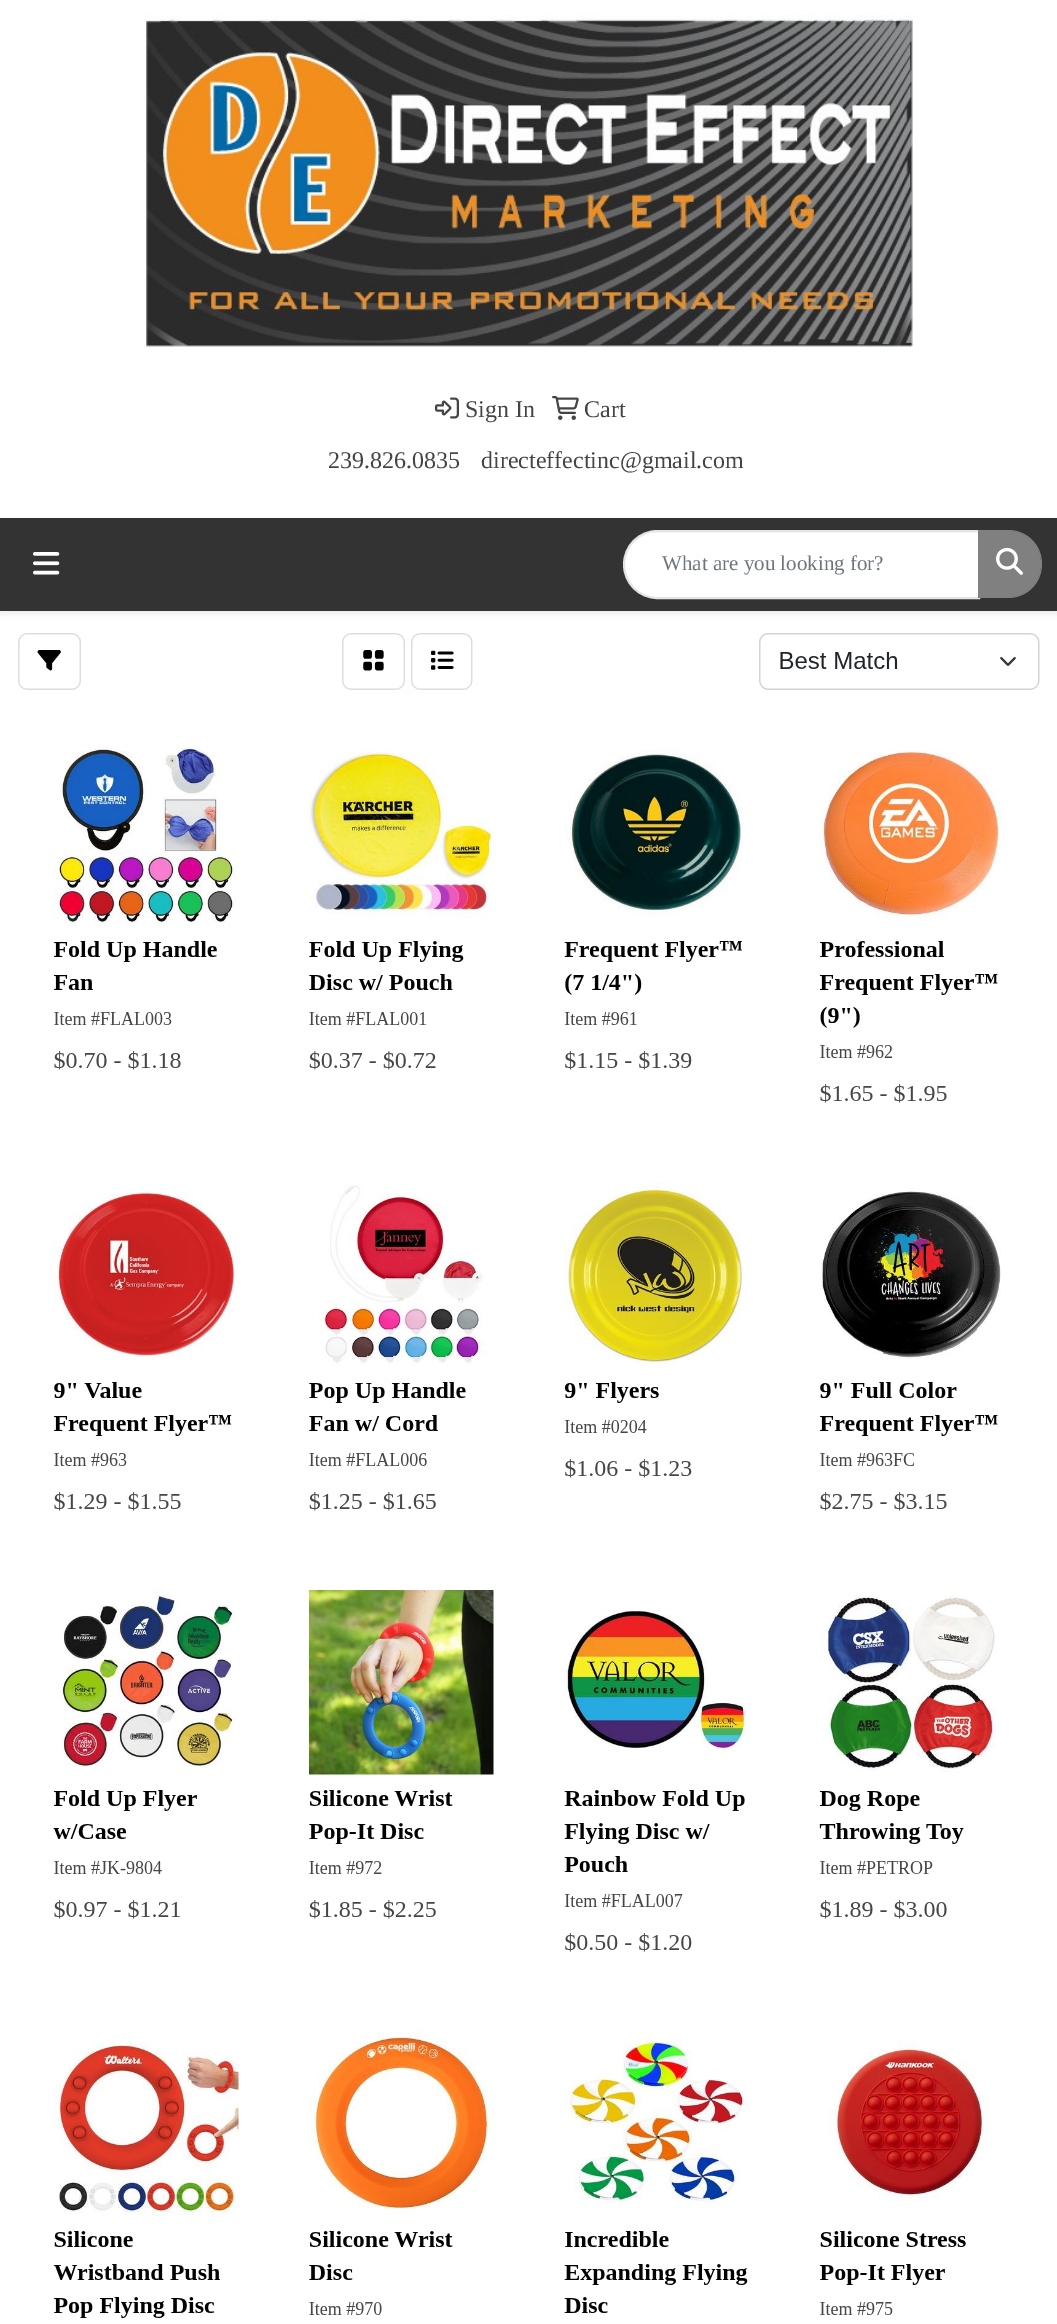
%!PS
<< /PageSize [1057 2324] /PageUsesTransparency true >> setpagedevice
/mt/moveto load def
/li/lineto load def
/ct/curveto load def
/cp/closepath load def
/fl/fill load def
/st/stroke load def
/gs/gsave load def
/gr/grestore load def
/lw/setlinewidth load def
/co { dup -16 bitshift 255 div exch dup -8 bitshift 255 and 255 div exch 255 and 255 div setrgbcolor } def
/fn { [ exch dup neg 0 0 3 -1 roll 0 0 ] selectfont } def
/tx { co fn moveto show } def
/bx { co rectfill } def
/al { dup .setfillconstantalpha .setstrokeconstantalpha } def
/rr { 5 dict begin { /r /h /w /y /x } { exch def } forall
  x r add y moveto x w add y 2 copy h add r arct x w add y h add x 1 index r arct
  x y h add x y r arct x y 2 copy exch w add exch r arct closepath end } def
/sh { 12 dict begin { /a /b /q /h /w /y /x } { exch def } forall gsave /was 0 def
  9 -2 -9 { dup b mul 4 div /e exch def 1 sub .425 mul 2.718 exch exp 1 add a .99 .min exch div /now exch def
    1 1 now sub 1 was sub div sub al /was now def
    w h .min e 2 mul add 0 gt { x e sub y e sub w e 2 mul add h e 2 mul add
      q e add b .6 mul add w h .min 2 div e add .min 0 .max rr fill } if } for grestore end } def
/im { 5 dict begin { /h /w /y /x /name } { exch def } forall
  gsave x y translate w h scale
  w h 8 [w 0 0 h 0 0] name (r) file false 3 colorimage grestore end } def
0 .pushpdf14devicefilter
0 2324 translate 1 -1 scale
4 setmiterlimit
0 0 1057 2324 16#FFFFFF bx
(media/1.raw) 144 15 769 332 im
(media/2.raw) 435 397 24 22 im
(media/3.raw) 552 396 27 24 im
16#000000 co
0 521 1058 93 0 3 .07 sh
0 518 1057 93 16#333333 bx
(media/4.raw) 33 552 27 23 im
16#FFFFFF co
657.5 531 mt 979 531 li 979 598 li 657.5 598 li 639 598 624 583 624 564.5 ct 624 546 639 531 657.5 531 ct cp gs fl gr
16#E4E4E4 co
2 lw
st
16#808080 co
978 531 mt 1008 531 li 1026 531 1041 546 1041 564 ct 1041 582 1026 597 1008 597 ct 978 597 li cp fl
978 530 mt 1008 530 li 1027 530 1042 545 1042 564 ct 1042 583 1027 598 1008 598 ct 978 598 li cp 978 531 mt 1008 531 li 1026 531 1041 546 1041 564 ct 1041 582 1026 597 1008 597 ct 978 597 li cp eofill
(media/5.raw) 996 547 27 28 im
(media/6.raw) 18 633 1022 1685 im
(Sign In) 465 417 /LiberationSerif-Regular 24 16#444444 tx
(Cart) 584 417 /LiberationSerif-Regular 24 16#444444 tx
(239.826.0835) 328 468 /LiberationSerif-Regular 24 16#444444 tx
(directeffectinc@gmail.com) 481 468 /LiberationSerif-Regular 24 16#444444 tx
(What are you looking for?) 662 570 /LiberationSerif-Regular 21 16#6C757D tx
.poppdf14devicefilter showpage
